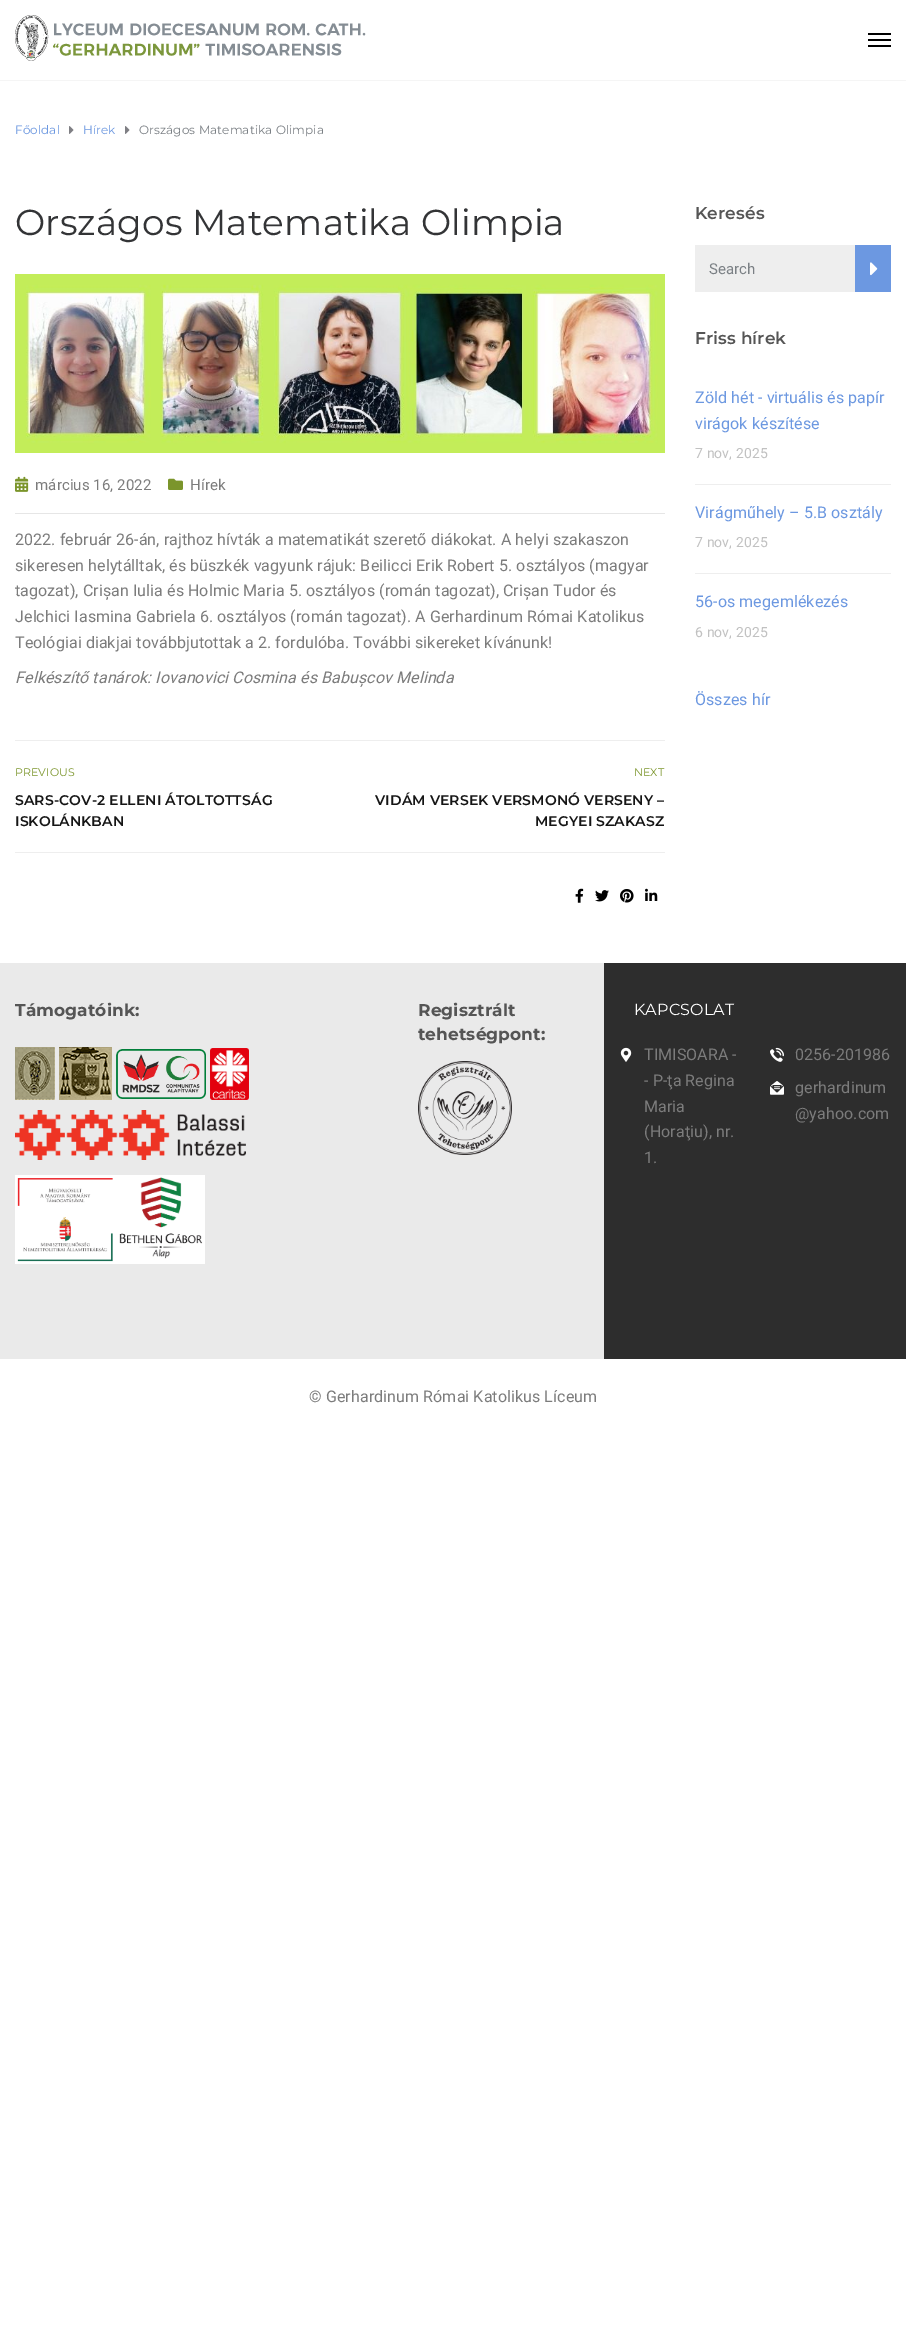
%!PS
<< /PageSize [906 2343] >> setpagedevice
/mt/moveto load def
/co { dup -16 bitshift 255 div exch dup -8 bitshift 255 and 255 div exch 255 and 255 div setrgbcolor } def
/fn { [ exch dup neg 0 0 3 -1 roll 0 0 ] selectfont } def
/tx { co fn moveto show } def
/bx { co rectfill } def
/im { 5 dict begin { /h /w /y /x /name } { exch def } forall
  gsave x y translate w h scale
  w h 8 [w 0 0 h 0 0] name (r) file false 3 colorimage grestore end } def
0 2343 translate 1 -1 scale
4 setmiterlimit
0 0 906 2343 16#FFFFFF bx
0 80 906 1 16#F5F5F5 bx
(media/1.raw) 15 15 351 46 im
868 33 23 2 16#000000 bx
868 39 23 2 16#000000 bx
868 45 23 2 16#000000 bx
(media/2.raw) 69 126 5 8 im
(media/2.raw) 125 126 5 8 im
(media/3.raw) 15 274 650 179 im
15 513 650 1 16#E6E6E6 bx
(media/4.raw) 15 476 14 16 im
(media/5.raw) 168 478 15 12 im
15 740 650 1 16#EEEEEE bx
15 852 650 1 16#EEEEEE bx
(media/6.raw) 575 888 9 15 im
(media/7.raw) 595 890 14 12 im
(media/8.raw) 620 889 14 14 im
(media/9.raw) 645 888 13 13 im
695 245 160 47 16#EEEEEE bx
855 245 36 47 16#6C98E1 bx
(media/10.raw) 870 262 8 14 im
695 484 196 1 16#EEEEEE bx
695 573 196 1 16#EEEEEE bx
604 963 302 396 16#2D2D2D bx
0 963 604 396 16#EAEAEA bx
(media/11.raw) 15 1047 40 53 im
(media/12.raw) 59 1047 53 53 im
(media/13.raw) 116 1049 90 50 im
(media/14.raw) 210 1048 39 52 im
(media/15.raw) 15 1110 231 50 im
(media/16.raw) 15 1175 190 89 im
(media/17.raw) 418 1061 94 94 im
(media/18.raw) 620 1047 12 15 im
(media/19.raw) 770 1047 14 15 im
(media/20.raw) 770 1081 14 14 im
/Montserrat-Regular 12 fn
16#6C98E1 co
15 134 mt .1 0 (Főoldal) ashow
83 134 mt .1 0 (Hírek) ashow
16#7B8085 co
139 134 mt .1 0 (Országos Matematika Olimpia) ashow
/Montserrat-Regular 36 fn
16#333436 co
15 235 mt .1 0 (Országos Matematika Olimpia) ashow
/Roboto-Regular 15 fn
16#7C7C7C co
35 490 mt .1 0 (március 16, 2022) ashow
190 490 mt .1 0 (Hírek) ashow
/Roboto-Regular 16 fn
15 545 mt .1 0 (2022. február 26-án, rajthoz hívták a matematikát szerető diákokat. A helyi szakaszon) ashow
15 571 mt .1 0 (sikeresen helytálltak, és büszkék vagyunk rájuk: Beilicci Erik Robert 5. osztályos \(magyar) ashow
15 596 mt .1 0 (tagozat\), Crișan Iulia és Holmic Maria 5. osztályos \(román tagozat\), Crișan Tudor és) ashow
15 622 mt .1 0 (Jelchici Iasmina Gabriela 6. osztályos \(román tagozat\). A Gerhardinum Római Katolikus) ashow
15 648 mt .1 0 (Teológiai diakjai továbbjutottak a 2. fordulóba. További sikereket kívánunk!) ashow
/Roboto-Italic 16 fn
15 683 mt .1 0 (Felkészítő tanárok: Iovanovici Cosmina és Babușcov Melinda) ashow
/Montserrat-Regular 11 fn
16#7B952B co
15 776 mt .1 0 (PREVIOUS) ashow
/Montserrat-SemiBold 14 fn
16#151515 co
15 805 mt .1 0 (SARS-COV-2 ELLENI ÁTOLTOTTSÁG) ashow
15 826 mt .1 0 (ISKOLÁNKBAN) ashow
/Montserrat-Regular 11 fn
16#7B952B co
634 776 mt .1 0 (NEXT) ashow
/Montserrat-SemiBold 14 fn
16#151515 co
375 805 mt .1 0 (VIDÁM VERSEK VERSMONÓ VERSENY –) ashow
535 826 mt .1 0 (MEGYEI SZAKASZ) ashow
/Montserrat-SemiBold 17 fn
16#555555 co
695 219 mt .1 0 (Keresés) ashow
(Search) 709 274 /Roboto-Regular 15 16#7B8085 tx
/Montserrat-SemiBold 17 fn
16#555555 co
695 344 mt .1 0 (Friss hírek) ashow
/Roboto-Regular 16 fn
16#6C98E1 co
695 403 mt .1 0 (Zöld hét - virtuális és papír) ashow
695 429 mt .1 0 (virágok készítése) ashow
/Roboto-Regular 14 fn
16#C1C1C1 co
695 458 mt .1 0 (7 nov, 2025) ashow
/Roboto-Regular 16 fn
16#6C98E1 co
695 518 mt .1 0 (Virágműhely – 5.B osztály) ashow
/Roboto-Regular 14 fn
16#C1C1C1 co
695 547 mt .1 0 (7 nov, 2025) ashow
/Roboto-Regular 16 fn
16#6C98E1 co
695 607 mt .1 0 (56-os megemlékezés) ashow
/Roboto-Regular 14 fn
16#C1C1C1 co
695 637 mt .1 0 (6 nov, 2025) ashow
/Roboto-Regular 16 fn
16#6C98E1 co
695 705 mt .1 0 (Összes hír) ashow
/Montserrat-Bold 17 fn
16#555555 co
15 1016 mt .1 0 (Támogatóink:) ashow
418 1016 mt .1 0 (Regisztrált) ashow
418 1040 mt .1 0 (tehetségpont:) ashow
/Montserrat-Regular 16 fn
16#FFFFFF co
634 1015 mt .1 0 (KAPCSOLAT) ashow
/Roboto-Regular 16 fn
16#7C7C7C co
644 1060 mt .1 0 (TIMISOARA -) ashow
644 1086 mt .1 0 (- P-ţa Regina) ashow
644 1112 mt .1 0 (Maria) ashow
644 1137 mt .1 0 (\(Horaţiu\), nr.) ashow
644 1163 mt .1 0 (1.) ashow
795 1060 mt .1 0 (0256-201986) ashow
795 1093 mt .1 0 (gerhardinum) ashow
795 1119 mt .1 0 (@yahoo.com) ashow
309 1402 mt .1 0 (© Gerhardinum Római Katolikus Líceum) ashow
showpage
